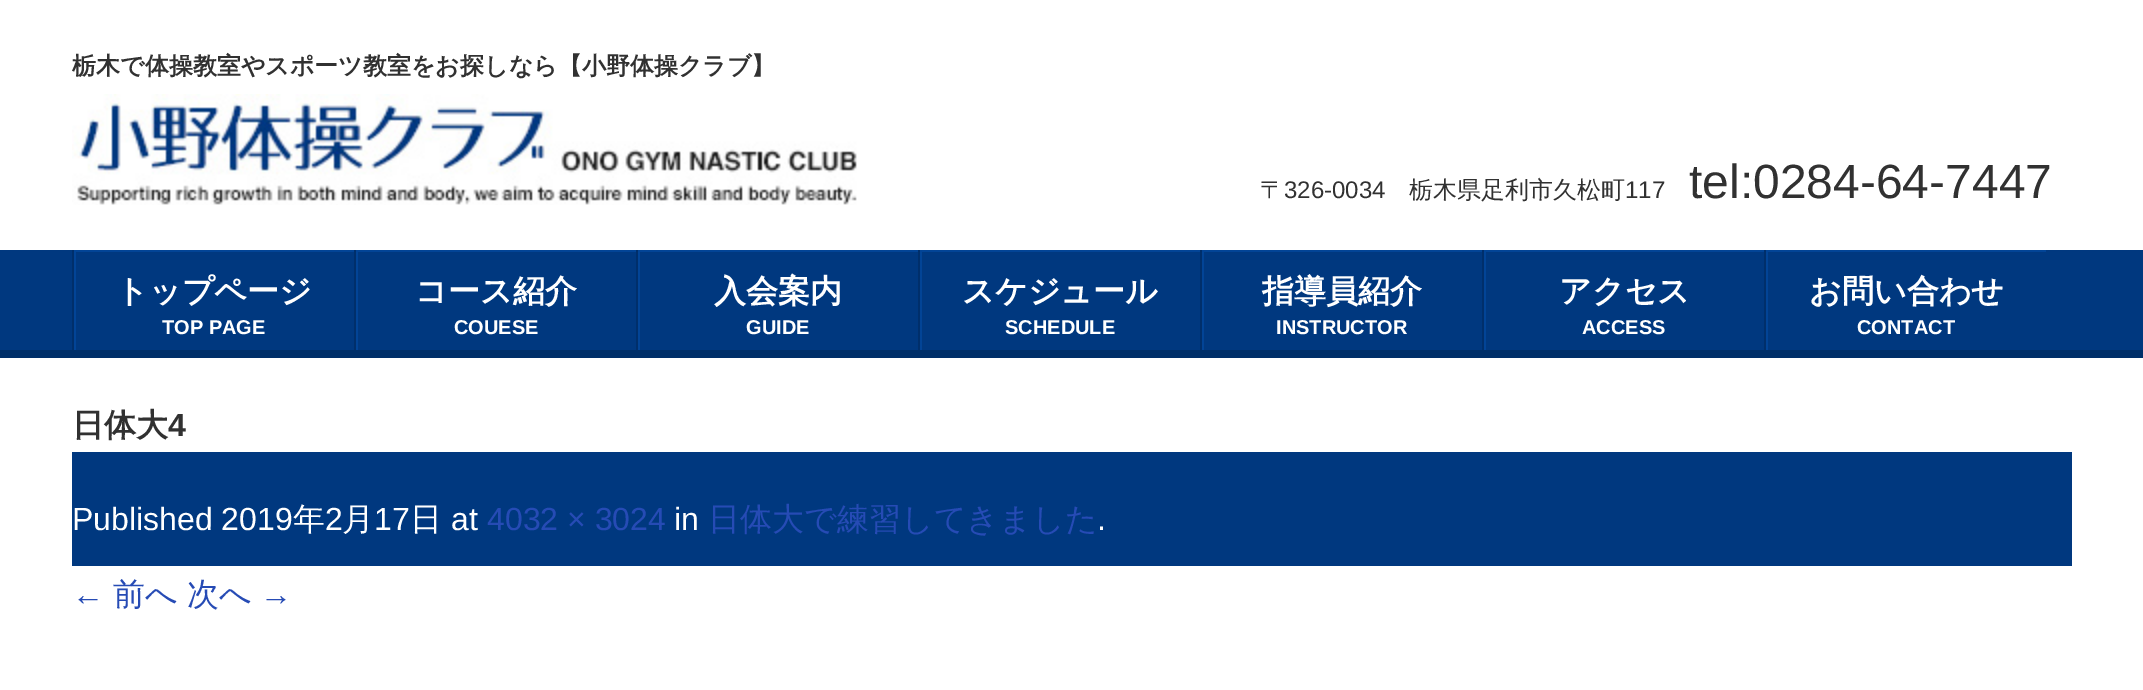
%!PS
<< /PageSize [2143 690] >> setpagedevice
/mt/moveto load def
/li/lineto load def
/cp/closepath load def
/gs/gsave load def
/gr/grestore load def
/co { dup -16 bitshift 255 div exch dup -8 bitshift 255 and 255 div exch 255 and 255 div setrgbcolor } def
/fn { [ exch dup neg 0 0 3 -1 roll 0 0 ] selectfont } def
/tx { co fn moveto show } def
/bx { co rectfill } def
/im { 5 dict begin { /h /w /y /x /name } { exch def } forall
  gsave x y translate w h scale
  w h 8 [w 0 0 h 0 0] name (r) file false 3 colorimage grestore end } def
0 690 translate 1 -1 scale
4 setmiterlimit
0 0 2143 690 16#FFFFFF bx
(media/1.raw) 72 94 785 111 im
0 250 2143 100 16#00387F bx
0 350 2143 8 16#002F69 bx
gs
74 250 280 100 rectclip
16#024496 co
-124 52 mt 552 52 li 552 548 li -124 548 li cp 76 252 mt 356 252 li 356 352 li 76 352 li cp eofill
gr
72 250 2 100 16#002F6B bx
gs
356 250 280 100 rectclip
16#024496 co
158 52 mt 834 52 li 834 548 li 158 548 li cp 358 252 mt 638 252 li 638 352 li 358 352 li cp eofill
gr
354 250 2 100 16#002F6B bx
gs
638 250 280 100 rectclip
16#024496 co
440 52 mt 1116 52 li 1116 548 li 440 548 li cp 640 252 mt 920 252 li 920 352 li 640 352 li cp eofill
gr
636 250 2 100 16#002F6B bx
gs
920 250 280 100 rectclip
16#024496 co
722 52 mt 1398 52 li 1398 548 li 722 548 li cp 922 252 mt 1202 252 li 1202 352 li 922 352 li cp eofill
gr
918 250 2 100 16#002F6B bx
gs
1202 250 280 100 rectclip
16#024496 co
1004 52 mt 1680 52 li 1680 548 li 1004 548 li cp 1204 252 mt 1484 252 li 1484 352 li 1204 352 li cp eofill
gr
1200 250 2 100 16#002F6B bx
gs
1484 250 280 100 rectclip
16#024496 co
1286 52 mt 1962 52 li 1962 548 li 1286 548 li cp 1486 252 mt 1766 252 li 1766 352 li 1486 352 li cp eofill
gr
1482 250 2 100 16#002F6B bx
gs
1766 250 280 100 rectclip
16#024496 co
1568 52 mt 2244 52 li 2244 548 li 1568 548 li cp 1768 252 mt 2048 252 li 2048 352 li 1768 352 li cp eofill
gr
1764 250 2 100 16#002F6B bx
72 452 2000 114 16#00387F bx
(栃木で体操教室やスポーツ教室をお探しなら【小野体操クラブ】) 72 74 /WenQuanYiZenHei-Bold 24 16#313131 tx
(〒) 1260 198 /WenQuanYiZenHei-Medium 24 16#313131 tx
(326-0034) 1284 198 /LiberationSans-Regular 24 16#313131 tx
(栃木県足利市久松町) 1409 198 /WenQuanYiZenHei-Medium 24 16#313131 tx
(117) 1625 198 /LiberationSans-Regular 24 16#313131 tx
(tel:0284-64-7447) 1689 198 /LiberationSans-Regular 48 16#313131 tx
(トップページ) 116 302 /WenQuanYiZenHei-Bold 32 16#FFFFFF tx
(TOP PAGE) 162 334 /LiberationSans-Bold 20 16#FFFFFF tx
(コース紹介) 415 302 /WenQuanYiZenHei-Bold 32 16#FFFFFF tx
(COUESE) 454 334 /LiberationSans-Bold 20 16#FFFFFF tx
(入会案内) 714 302 /WenQuanYiZenHei-Bold 32 16#FFFFFF tx
(GUIDE) 746 334 /LiberationSans-Bold 20 16#FFFFFF tx
(スケジュール) 962 302 /WenQuanYiZenHei-Bold 32 16#FFFFFF tx
(SCHEDULE) 1005 334 /LiberationSans-Bold 20 16#FFFFFF tx
(指導員紹介) 1262 302 /WenQuanYiZenHei-Bold 32 16#FFFFFF tx
(INSTRUCTOR) 1276 334 /LiberationSans-Bold 20 16#FFFFFF tx
(アクセス) 1559 302 /WenQuanYiZenHei-Bold 32 16#FFFFFF tx
(ACCESS) 1582 334 /LiberationSans-Bold 20 16#FFFFFF tx
(お問い合わせ) 1809 302 /WenQuanYiZenHei-Bold 32 16#FFFFFF tx
(CONTACT) 1857 334 /LiberationSans-Bold 20 16#FFFFFF tx
(日体大) 72 436 /WenQuanYiZenHei-Bold 32 16#313131 tx
(4) 168 436 /LiberationSans-Bold 32 16#313131 tx
(Published 2019) 72 530 /LiberationSans-Regular 32 16#FFFFFF tx
(年) 293 530 /WenQuanYiZenHei-Medium 32 16#FFFFFF tx
(2) 325 530 /LiberationSans-Regular 32 16#FFFFFF tx
(月) 342 530 /WenQuanYiZenHei-Medium 32 16#FFFFFF tx
(17) 374 530 /LiberationSans-Regular 32 16#FFFFFF tx
(日) 410 530 /WenQuanYiZenHei-Medium 32 16#FFFFFF tx
(at) 451 530 /LiberationSans-Regular 32 16#FFFFFF tx
(4032 × 3024) 487 530 /LiberationSans-Regular 32 16#264BB5 tx
(in) 674 530 /LiberationSans-Regular 32 16#FFFFFF tx
(日体大で練習してきました) 708 530 /WenQuanYiZenHei-Medium 32 16#264BB5 tx
(.) 1097 530 /LiberationSans-Regular 32 16#FFFFFF tx
(←) 72 605 /LiberationSans-Regular 32 16#264BB5 tx
(前へ) 113 605 /WenQuanYiZenHei-Medium 32 16#264BB5 tx
(次へ) 187 605 /WenQuanYiZenHei-Medium 32 16#264BB5 tx
(→) 260 605 /LiberationSans-Regular 32 16#264BB5 tx
showpage
